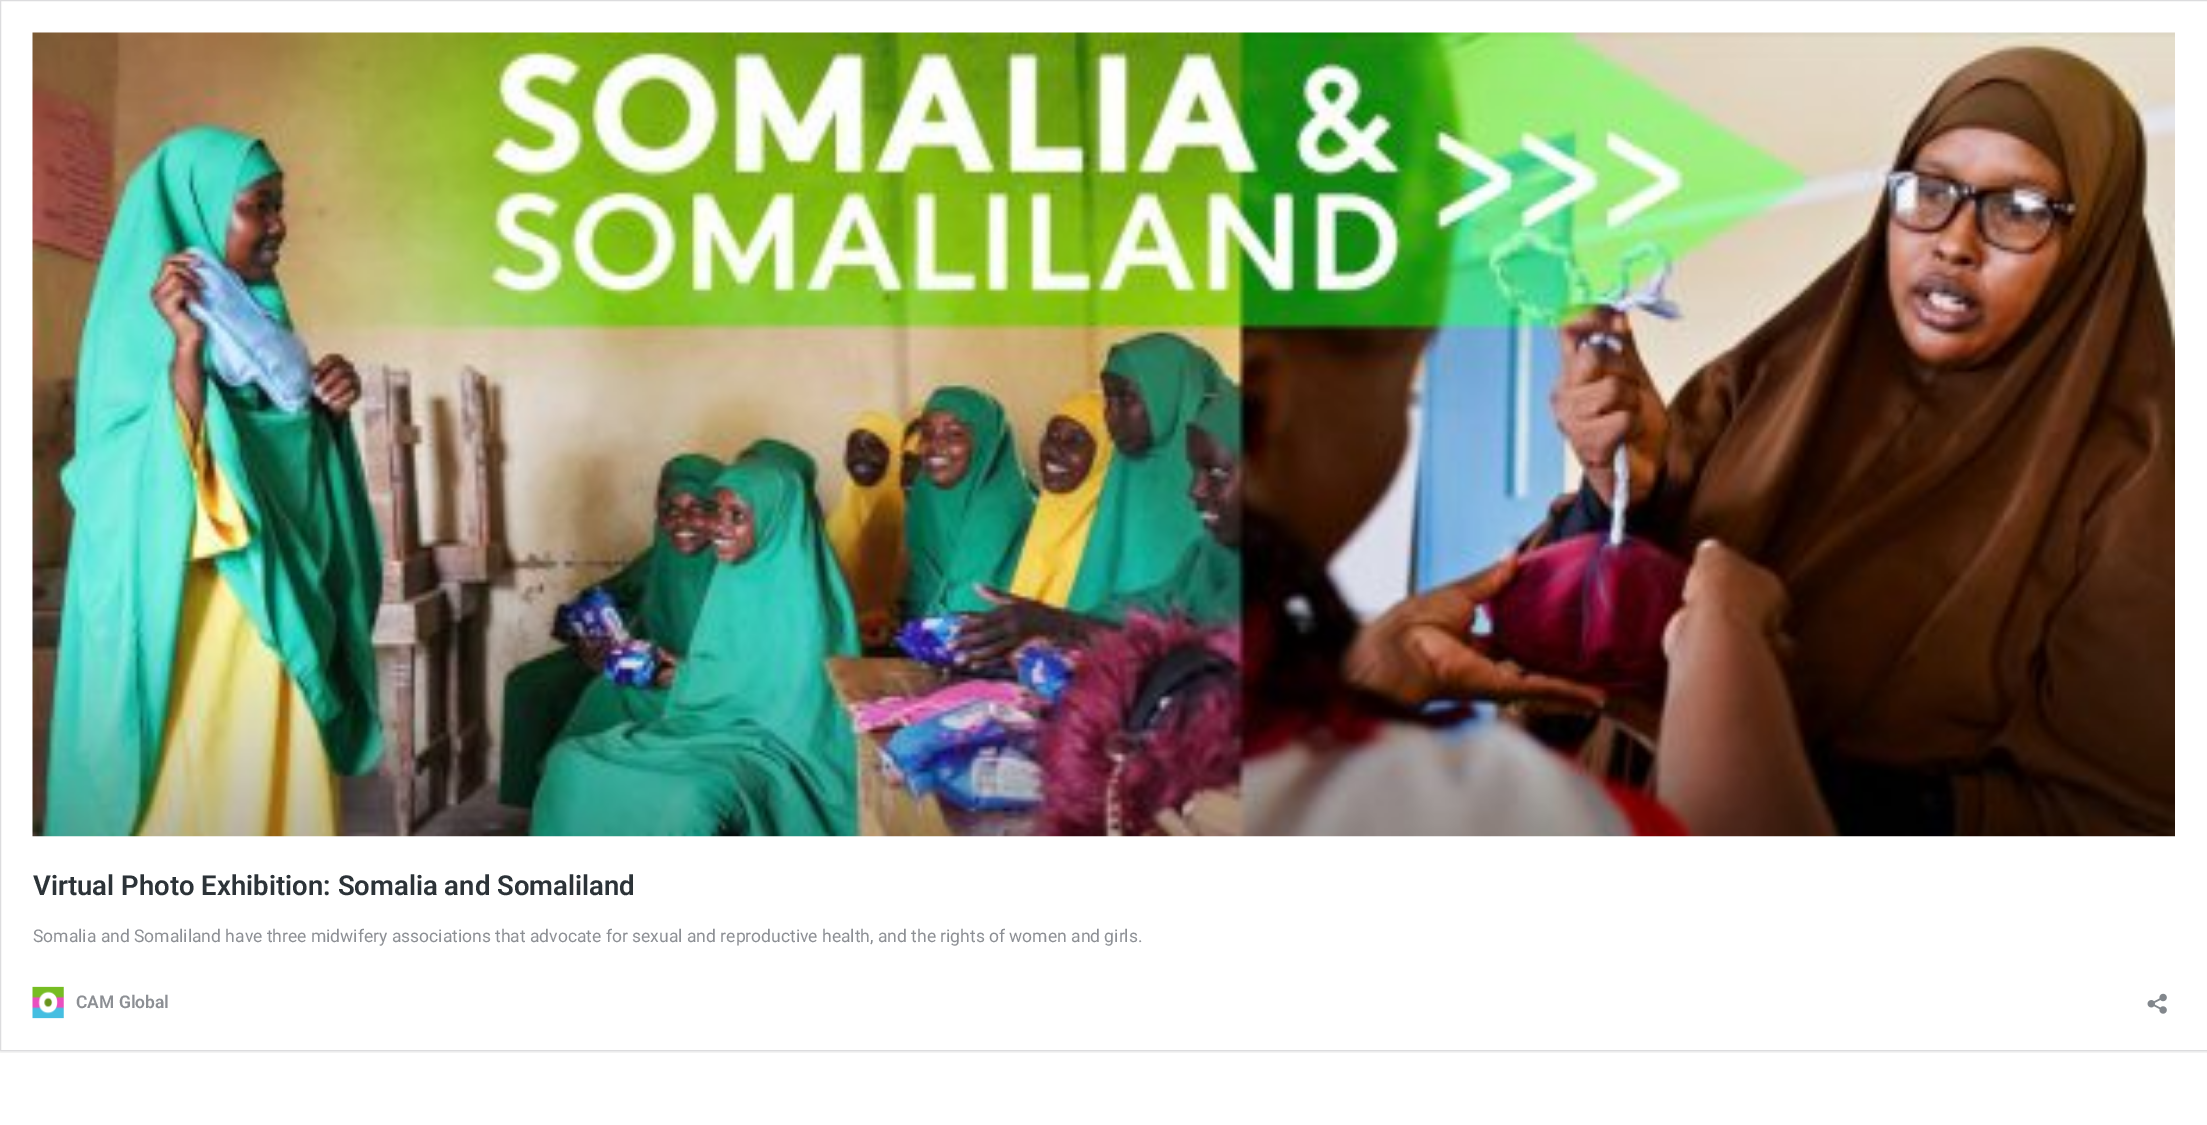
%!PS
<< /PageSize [2207 1125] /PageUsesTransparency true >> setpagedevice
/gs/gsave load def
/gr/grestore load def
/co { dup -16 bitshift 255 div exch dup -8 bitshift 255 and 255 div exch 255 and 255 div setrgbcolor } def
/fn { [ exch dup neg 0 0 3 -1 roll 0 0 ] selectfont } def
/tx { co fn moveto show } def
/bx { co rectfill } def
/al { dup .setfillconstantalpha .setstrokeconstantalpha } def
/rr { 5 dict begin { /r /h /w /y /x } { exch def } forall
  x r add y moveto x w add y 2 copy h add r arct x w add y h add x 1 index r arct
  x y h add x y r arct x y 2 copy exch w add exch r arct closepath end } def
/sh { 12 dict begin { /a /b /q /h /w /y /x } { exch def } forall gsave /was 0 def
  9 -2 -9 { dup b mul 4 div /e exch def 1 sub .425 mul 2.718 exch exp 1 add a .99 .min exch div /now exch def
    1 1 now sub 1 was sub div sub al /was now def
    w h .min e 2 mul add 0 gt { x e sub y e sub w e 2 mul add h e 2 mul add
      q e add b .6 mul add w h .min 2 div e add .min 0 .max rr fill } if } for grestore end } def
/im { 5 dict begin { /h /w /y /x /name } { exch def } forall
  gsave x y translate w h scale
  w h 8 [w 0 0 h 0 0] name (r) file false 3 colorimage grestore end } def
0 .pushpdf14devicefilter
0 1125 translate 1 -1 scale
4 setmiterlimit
0 0 2207 1125 16#FFFFFF bx
gs
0 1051 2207 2 rectclip
16#000000 co
0 1 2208 1052 0 .5 .05 sh
gr
16#DCDCDE co
.5 .5 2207 1050 rectstroke
(media/1.raw) 32 32 2143 805 im
(media/2.raw) 32 986 32 33 im
(media/3.raw) 2147 993 20 21 im
(Virtual Photo Exhibition: Somalia and Somaliland) 33 895 /Roboto-SemiBold 27.5 16#2C3338 tx
(Somalia and Somaliland have three midwifery associations that advocate for sexual and reproductive health, and the rights of women and girls.) 33 942 /Roboto-Regular 17.5 16#8C8F94 tx
(CAM Global) 76 1008 /Roboto-SemiBold 17.5 16#8C8F94 tx
.poppdf14devicefilter showpage
